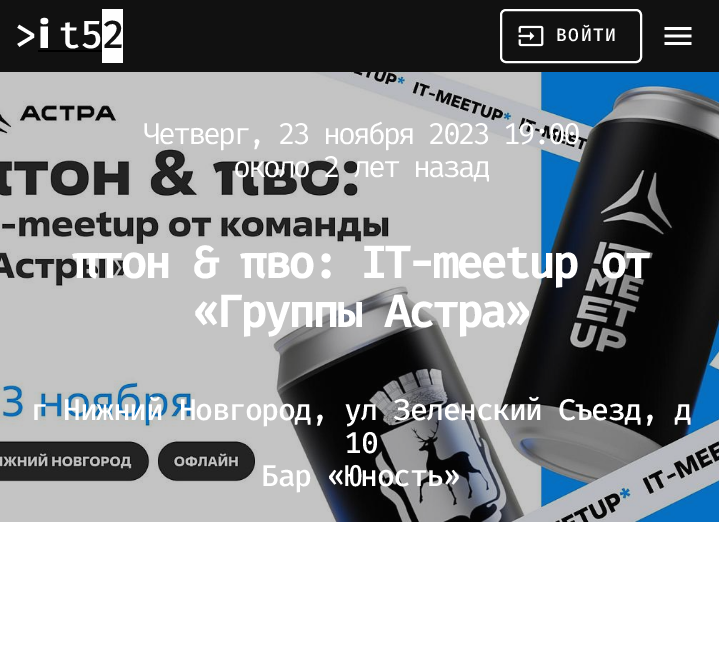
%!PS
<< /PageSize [719 665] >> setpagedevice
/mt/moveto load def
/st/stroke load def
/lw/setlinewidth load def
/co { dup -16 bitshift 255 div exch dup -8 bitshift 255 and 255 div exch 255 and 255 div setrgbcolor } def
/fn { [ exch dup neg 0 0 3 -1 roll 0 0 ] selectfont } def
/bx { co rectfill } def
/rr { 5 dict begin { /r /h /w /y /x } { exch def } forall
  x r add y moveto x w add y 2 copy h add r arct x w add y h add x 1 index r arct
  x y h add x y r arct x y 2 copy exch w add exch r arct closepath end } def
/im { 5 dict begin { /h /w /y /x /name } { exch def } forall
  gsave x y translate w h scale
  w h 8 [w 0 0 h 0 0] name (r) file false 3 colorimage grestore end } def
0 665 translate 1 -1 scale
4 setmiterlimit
0 0 719 665 16#FFFFFF bx
0 0 719 72 16#111111 bx
38 50 64 2 16#000000 bx
102 9 21 54 16#FEFEFE bx
2 lw
501 10 140 52 5 rr st
(media/1.raw) 518 25 26 22 im
(media/2.raw) 664 27 28 18 im
(media/3.raw) 0 72 719 450 im
/FiraMono-Medium 39 fn
16#FFFFFF co
14 48 mt -1.5 0 (>) ashow
/NotoSans-Black 39 fn
38 48 mt -1.5 0 (i) ashow
/FiraMono-Medium 39 fn
58 48 mt -1.5 0 (t5) ashow
16#111111 co
102 48 mt -1.5 0 (2) ashow
/FiraMono-Medium 18 fn
16#FFFFFF co
556 41 mt 1.5 0 (ВОЙТИ) ashow
/FiraMono-Regular 30 fn
143 144 mt -3 0 (Четверг, 23 ноября 2023 19:00) ashow
233 177 mt -3 0 (около 2 лет назад) ashow
/FiraMono-Bold 45 fn
72 278 mt -3 0 (πтон & πво: IT-meetup от) ashow
192 327 mt -3 0 («Группы Астра») ashow
/FiraMono-Medium 30 fn
30 420 mt -1.5 0 (г Нижний Новгород, ул Зеленский Съезд, д) ashow
344 453 mt -1.5 0 (10) ashow
261 486 mt -1.5 0 (Бар «Юность») ashow
showpage
